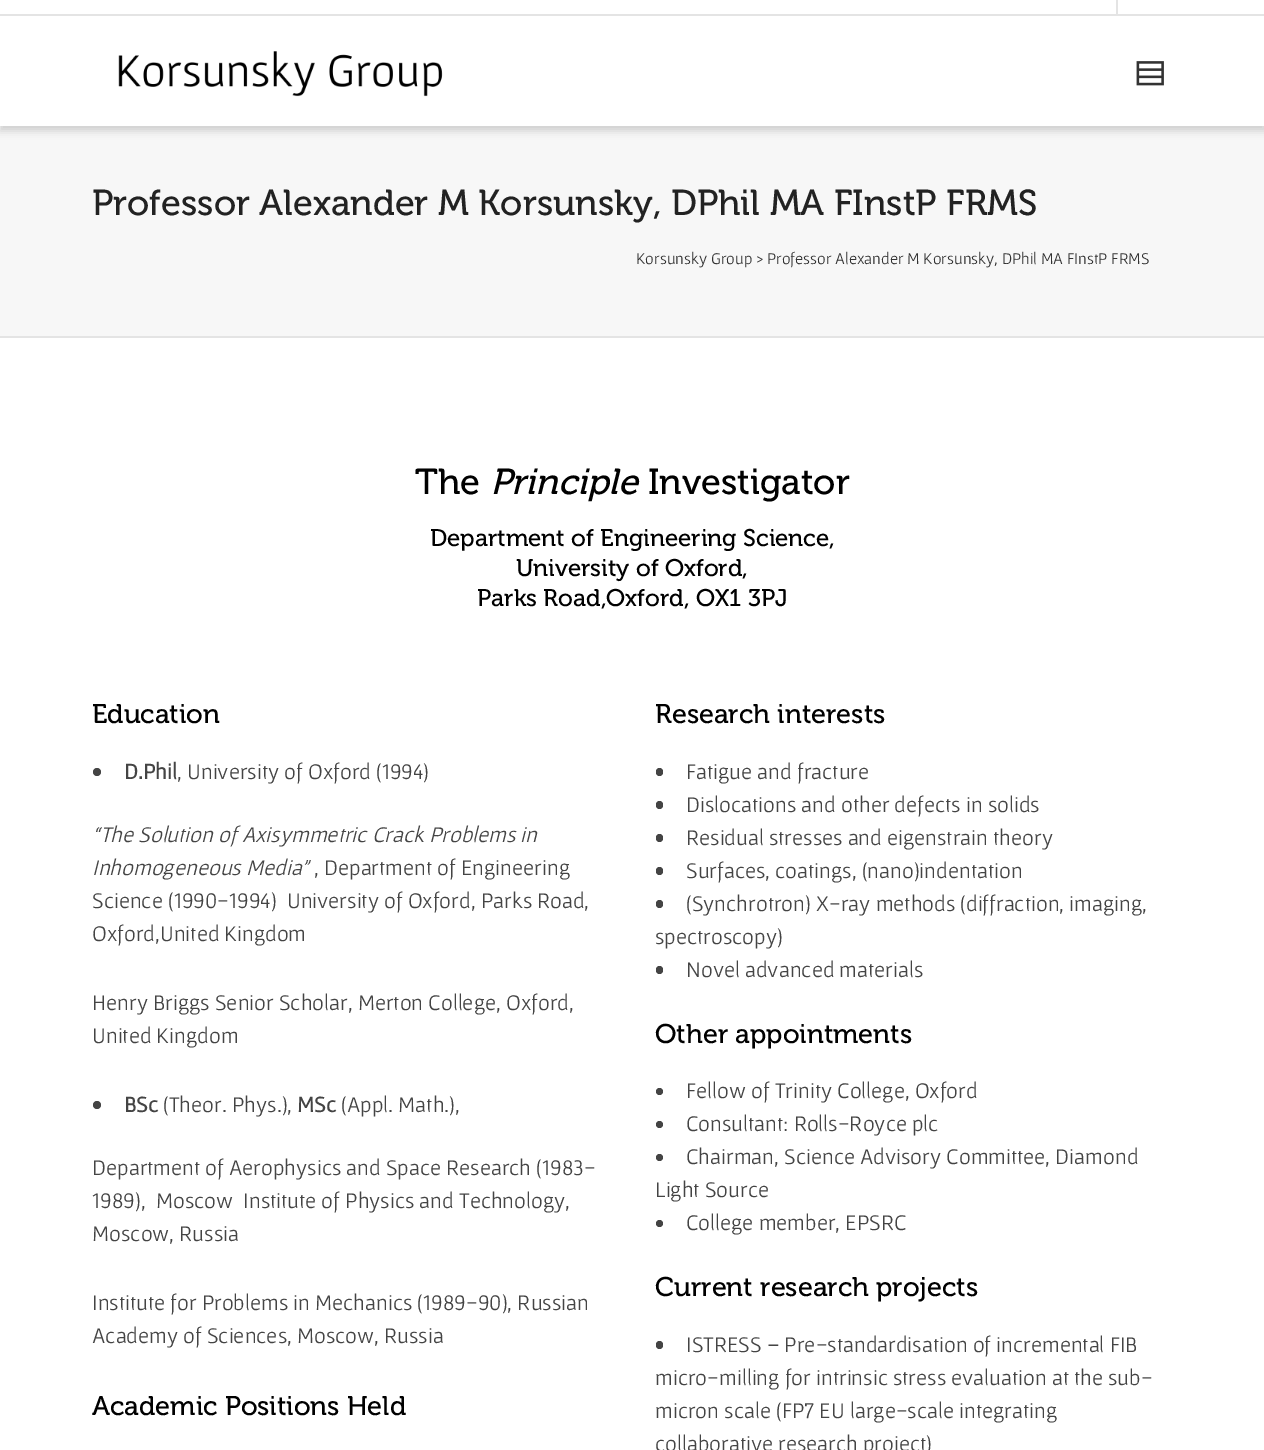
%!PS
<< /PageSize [1264 1450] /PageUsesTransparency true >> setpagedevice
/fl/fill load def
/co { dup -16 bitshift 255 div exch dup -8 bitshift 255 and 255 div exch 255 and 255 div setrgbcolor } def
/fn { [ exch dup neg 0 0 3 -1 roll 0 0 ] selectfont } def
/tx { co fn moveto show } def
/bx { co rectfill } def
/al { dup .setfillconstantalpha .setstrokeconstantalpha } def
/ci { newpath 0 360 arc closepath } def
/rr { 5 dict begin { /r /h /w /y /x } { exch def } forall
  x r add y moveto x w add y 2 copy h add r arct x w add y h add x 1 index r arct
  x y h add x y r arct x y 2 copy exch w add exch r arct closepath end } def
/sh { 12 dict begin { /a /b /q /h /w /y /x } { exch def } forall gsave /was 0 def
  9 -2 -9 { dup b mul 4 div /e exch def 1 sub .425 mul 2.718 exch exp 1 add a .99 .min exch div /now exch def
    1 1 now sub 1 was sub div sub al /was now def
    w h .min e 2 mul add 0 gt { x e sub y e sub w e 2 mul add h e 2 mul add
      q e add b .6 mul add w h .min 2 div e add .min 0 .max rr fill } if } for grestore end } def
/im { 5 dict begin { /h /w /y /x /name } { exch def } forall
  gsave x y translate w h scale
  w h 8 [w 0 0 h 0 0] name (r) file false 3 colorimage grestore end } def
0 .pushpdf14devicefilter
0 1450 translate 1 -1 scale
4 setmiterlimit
0 0 1264 1450 16#FFFFFF bx
0 126 1264 210 16#F7F7F7 bx
16#000000 co
0 -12 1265 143 0 4 .1 sh
0 -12 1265 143 0 4 .05 sh
0 0 1264 126 16#FFFFFF bx
0 14 1264 2 16#E4E4E4 bx
1116 0 2 14 16#E4E4E4 bx
(media/1.raw) 118 51 325 46 im
(media/2.raw) 1136 61 28 25 im
0 336 1264 2 16#E4E4E4 bx
16#444444 co
97 772 4 ci fl
97 1105 4 ci fl
656 768 7 8 3.5 rr fl
656 801 7 8 3.5 rr fl
656 834 7 8 3.5 rr fl
656 867 7 8 3.5 rr fl
656 900 7 8 3.5 rr fl
656 966 7 8 3.5 rr fl
659.5 1091.5 3.5 ci fl
659.5 1124.5 3.5 ci fl
659.5 1157.5 3.5 ci fl
659.5 1223.5 3.5 ci fl
656 1341 7 8 3.5 rr fl
(Professor Alexander M Korsunsky, DPhil MA FInstP FRMS) 92 215 /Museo-Regular 36 16#222222 tx
(Korsunsky Group > Professor Alexander M Korsunsky, DPhil MA FInstP FRMS) 636 264 /Gafata-Regular 16.5 16#333333 tx
(The) 415 494 /Museo-Regular 36 16#000000 tx
(Principle) 490 494 /Museo-Italic 36 16#000000 tx
(Investigator) 648 494 /Museo-Regular 36 16#000000 tx
(Department of Engineering Science,) 430 546 /Museo-Regular 24 16#000000 tx
(University of Oxford,) 516 576 /Museo-Regular 24 16#000000 tx
(Parks Road,Oxford, OX1 3PJ) 477 606 /Museo-Regular 24 16#000000 tx
(Education) 92 723 /Museo-Regular 27 16#000000 tx
(D.Phil) 124 779 /Gafata-Bold 22.5 16#444444 tx
(, University of Oxford \(1994\)) 177 779 /Gafata-Regular 22.5 16#444444 tx
(“The Solution of Axisymmetric Crack Problems in) 92 842 /Gafata-Italic 22.5 16#444444 tx
(Inhomogeneous Media”) 92 875 /Gafata-Italic 22.5 16#444444 tx
(, Department of Engineering) 314 875 /Gafata-Regular 22.5 16#444444 tx
(Science \(1990-1994\)  University of Oxford, Parks Road,) 92 908 /Gafata-Regular 22.5 16#444444 tx
(Oxford,United Kingdom) 92 941 /Gafata-Regular 22.5 16#444444 tx
(Henry Briggs Senior Scholar, Merton College, Oxford,) 92 1010 /Gafata-Regular 22.5 16#444444 tx
(United Kingdom) 92 1043 /Gafata-Regular 22.5 16#444444 tx
(BSc) 124 1112 /Gafata-Bold 22.5 16#444444 tx
(\(Theor. Phys.\),) 163 1112 /Gafata-Regular 22.5 16#444444 tx
(MSc) 297 1112 /Gafata-Bold 22.5 16#444444 tx
(\(Appl. Math.\),) 341 1112 /Gafata-Regular 22.5 16#444444 tx
(Department of Aerophysics and Space Research \(1983-) 92 1175 /Gafata-Regular 22.5 16#444444 tx
(1989\),  Moscow  Institute of Physics and Technology,) 92 1208 /Gafata-Regular 22.5 16#444444 tx
(Moscow, Russia) 92 1241 /Gafata-Regular 22.5 16#444444 tx
(Institute for Problems in Mechanics \(1989-90\), Russian) 92 1310 /Gafata-Regular 22.5 16#444444 tx
(Academy of Sciences, Moscow, Russia) 92 1343 /Gafata-Regular 22.5 16#444444 tx
(Academic Positions Held) 92 1415 /Museo-Regular 27 16#000000 tx
(Research interests) 655 723 /Museo-Regular 27 16#000000 tx
(Fatigue and fracture) 686 779 /Gafata-Regular 22.5 16#444444 tx
(Dislocations and other defects in solids) 686 812 /Gafata-Regular 22.5 16#444444 tx
(Residual stresses and eigenstrain theory) 686 845 /Gafata-Regular 22.5 16#444444 tx
(Surfaces, coatings, \(nano\)indentation) 686 878 /Gafata-Regular 22.5 16#444444 tx
(\(Synchrotron\) X-ray methods \(diffraction, imaging,) 686 911 /Gafata-Regular 22.5 16#444444 tx
(spectroscopy\)) 655 944 /Gafata-Regular 22.5 16#444444 tx
(Novel advanced materials) 686 977 /Gafata-Regular 22.5 16#444444 tx
(Other appointments) 655 1043 /Museo-Regular 27 16#000000 tx
(Fellow of Trinity College, Oxford) 686 1098 /Gafata-Regular 22.5 16#444444 tx
(Consultant: Rolls-Royce plc) 686 1131 /Gafata-Regular 22.5 16#444444 tx
(Chairman, Science Advisory Committee, Diamond) 686 1164 /Gafata-Regular 22.5 16#444444 tx
(Light Source) 655 1197 /Gafata-Regular 22.5 16#444444 tx
(College member, EPSRC) 686 1230 /Gafata-Regular 22.5 16#444444 tx
(Current research projects) 655 1296 /Museo-Regular 27 16#000000 tx
(ISTRESS – Pre-standardisation of incremental FIB) 686 1352 /Gafata-Regular 22.5 16#444444 tx
(micro-milling for intrinsic stress evaluation at the sub-) 655 1385 /Gafata-Regular 22.5 16#444444 tx
(micron scale \(FP7 EU large-scale integrating) 655 1418 /Gafata-Regular 22.5 16#444444 tx
(collaborative research project\)) 655 1451 /Gafata-Regular 22.5 16#444444 tx
.poppdf14devicefilter showpage
